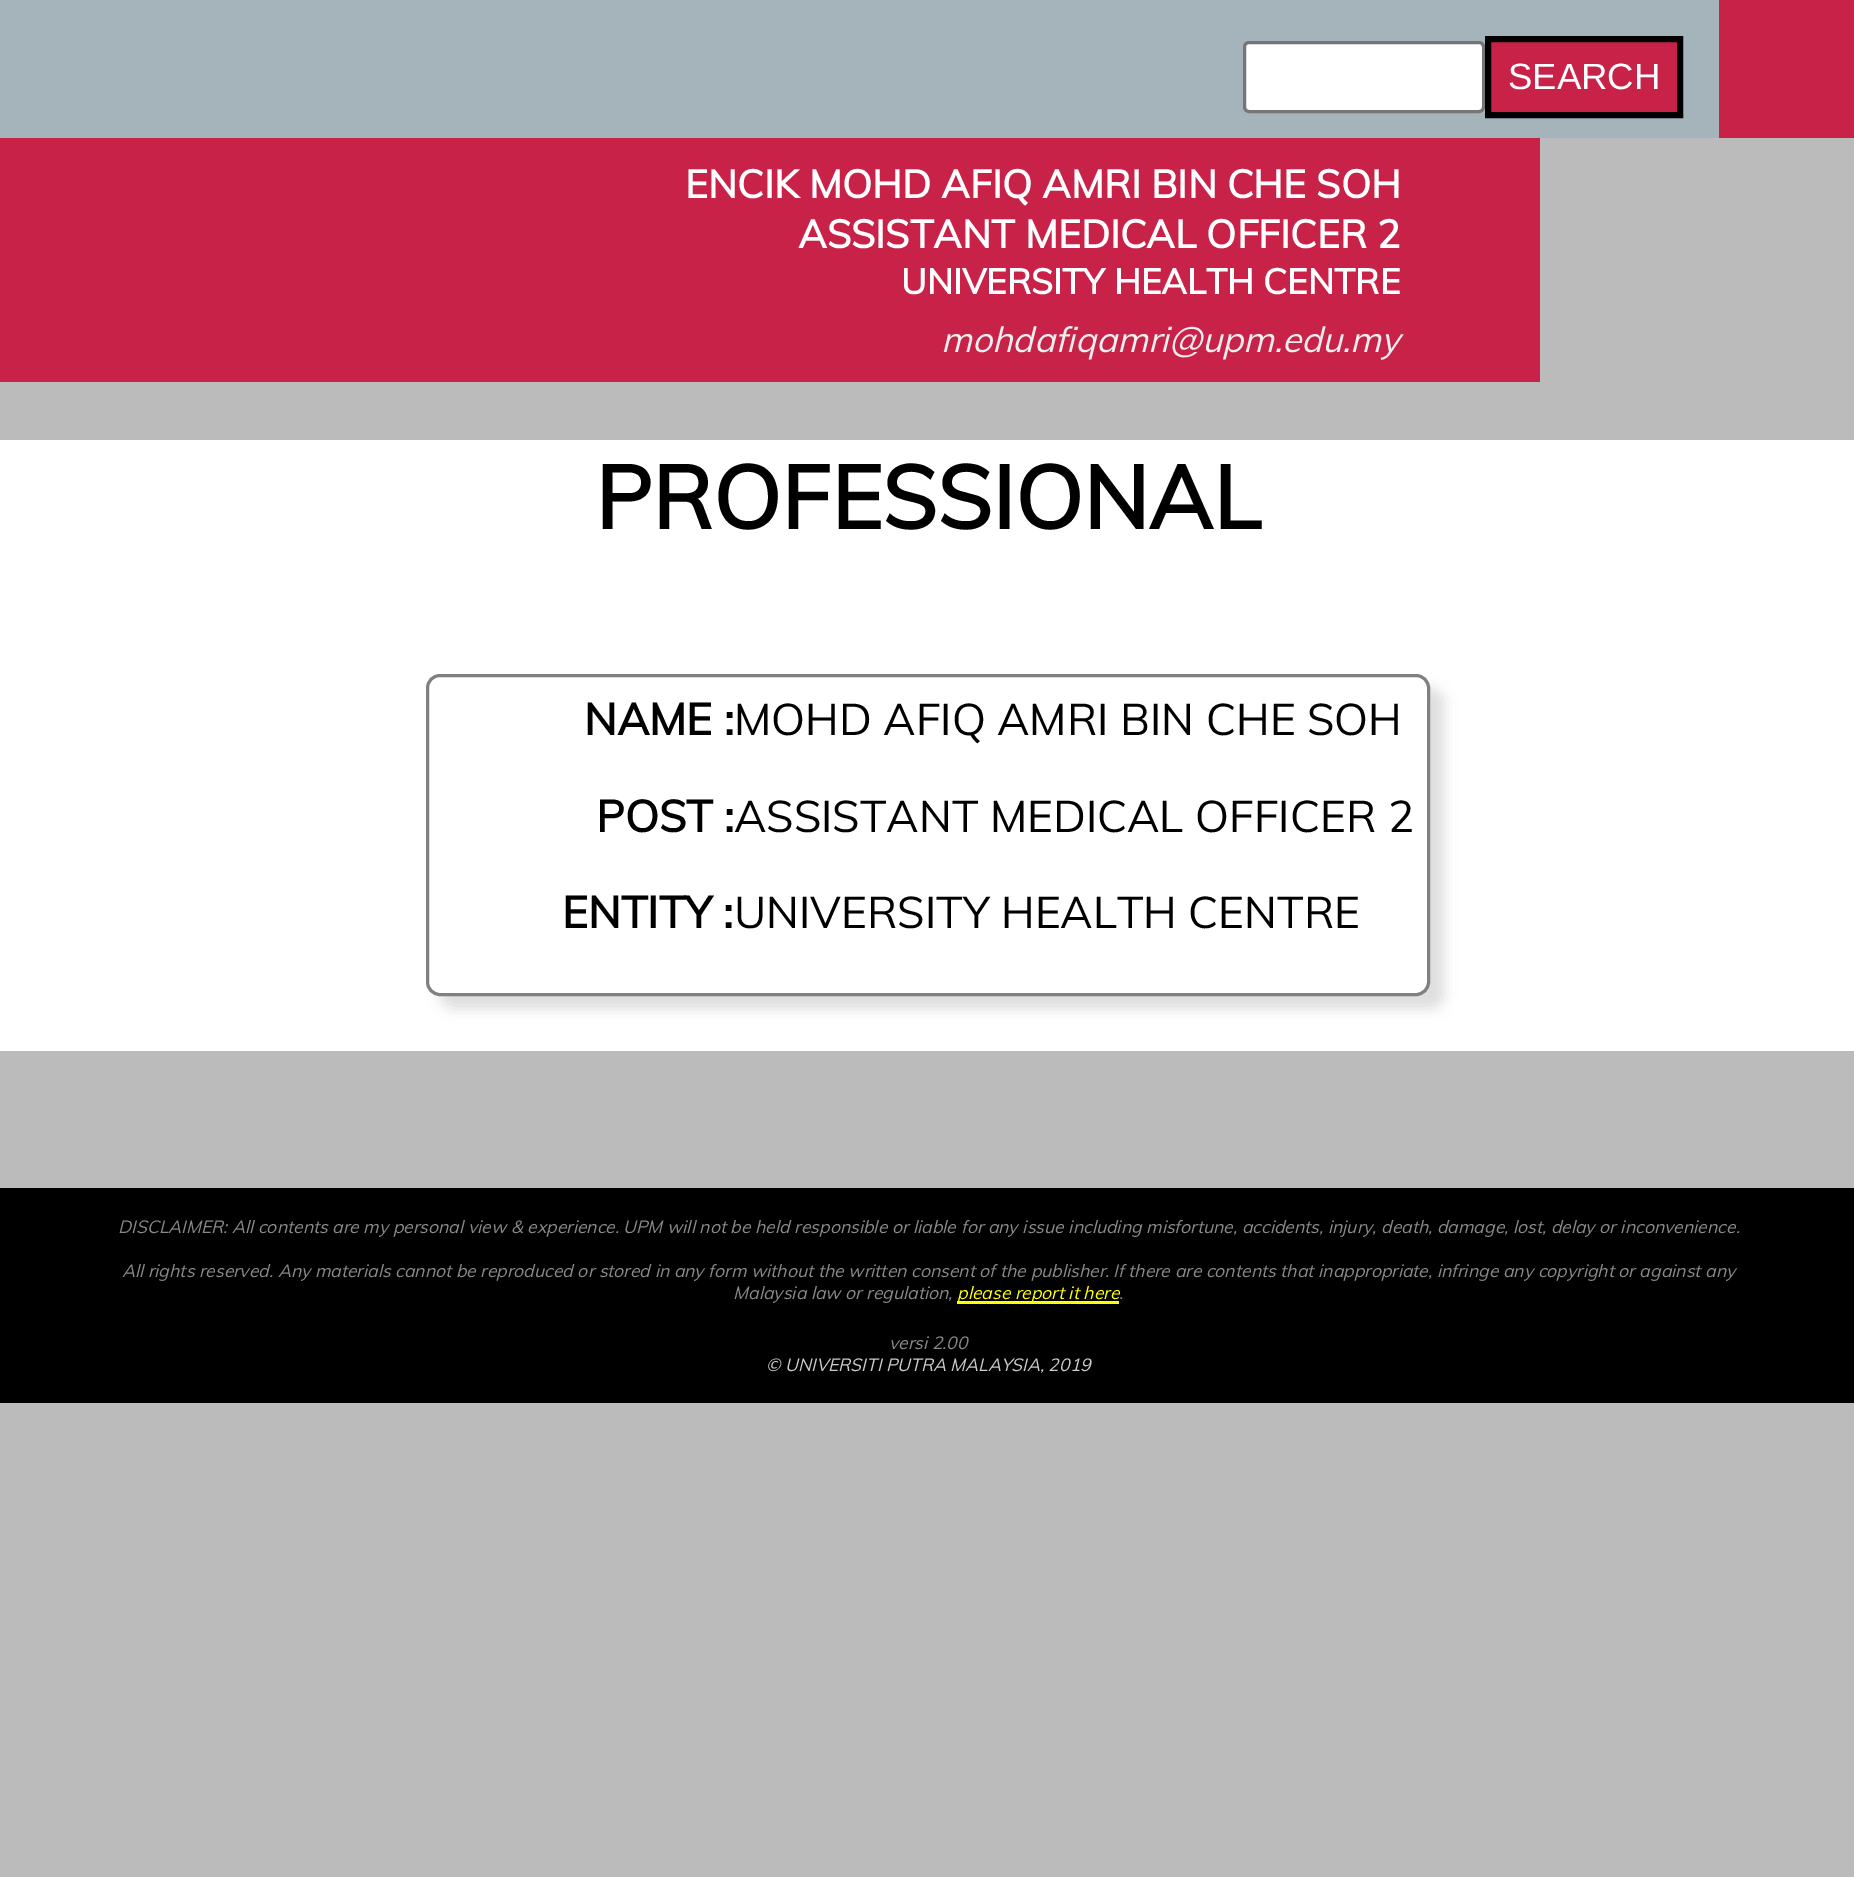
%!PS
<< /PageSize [1854 1877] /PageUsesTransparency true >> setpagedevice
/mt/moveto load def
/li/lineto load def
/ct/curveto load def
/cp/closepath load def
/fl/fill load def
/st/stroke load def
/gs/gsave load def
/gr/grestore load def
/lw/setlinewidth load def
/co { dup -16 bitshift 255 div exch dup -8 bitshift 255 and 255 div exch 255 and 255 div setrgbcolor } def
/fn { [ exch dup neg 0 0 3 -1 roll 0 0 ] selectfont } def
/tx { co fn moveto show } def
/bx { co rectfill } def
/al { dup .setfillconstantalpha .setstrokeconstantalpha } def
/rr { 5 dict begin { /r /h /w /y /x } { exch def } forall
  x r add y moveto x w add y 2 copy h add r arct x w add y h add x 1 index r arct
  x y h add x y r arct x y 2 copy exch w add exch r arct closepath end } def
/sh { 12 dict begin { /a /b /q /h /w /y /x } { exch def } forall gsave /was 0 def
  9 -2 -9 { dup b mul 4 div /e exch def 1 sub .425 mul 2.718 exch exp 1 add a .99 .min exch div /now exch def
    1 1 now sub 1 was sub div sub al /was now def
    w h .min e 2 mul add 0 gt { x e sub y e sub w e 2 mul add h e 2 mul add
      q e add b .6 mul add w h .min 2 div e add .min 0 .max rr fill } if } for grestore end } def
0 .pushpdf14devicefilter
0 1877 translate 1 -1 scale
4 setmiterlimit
0 0 1854 1877 16#BBBBBB bx
0 0 1719 138 16#A5B3BB bx
16#FFFFFF co
1244.5 42.5 239 69 4.5 rr gs fl gr
16#767676 co
3 lw
st
16#C82249 co
1488 39 mt 1680 39 li 1680 115 li 1488 115 li cp gs fl gr
16#000000 co
6 lw
st
0 138 1540 244 16#C82249 bx
0 440 1854 611 16#FFFFFF bx
1719 0 135 138 16#C82249 bx
gs
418 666 mt 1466 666 li 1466 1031 li 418 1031 li cp 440 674 mt 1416 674 li 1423.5 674 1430 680.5 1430 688 ct 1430 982 li 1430 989.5 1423.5 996 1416 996 ct 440 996 li 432.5 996 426 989.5 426 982 ct 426 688 li 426 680.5 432.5 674 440 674 ct cp eoclip newpath
16#DDDDDD co
440 688 1004 321 14 7 1 sh
gr
16#808080 co
3 lw
427.5 675.5 1001 319 12.5 rr st
0 1188 1854 215 16#000000 bx
957 1301 162 3 16#FFFF00 bx
(SEARCH) 1508 89 /LiberationSans-Regular 36.5 16#FFFFFF tx
(ENCIK MOHD AFIQ AMRI BIN CHE SOH) 685 198 /Muli-Bold 39 16#FFFFFF tx
(ASSISTANT MEDICAL OFFICER 2) 798 248 /Muli-Bold 39 16#FFFFFF tx
(UNIVERSITY HEALTH CENTRE) 901 294 /Muli-Bold 35.1 16#FFFFFF tx
(mohdafiqamri@upm.edu.my) 941 352 /Muli-Italic 35.1 16#EEEEEE tx
(PROFESSIONAL) 595 529 /Muli-Bold 88 16#000000 tx
(NAME :) 584 735 /Muli-Bold 44 16#000000 tx
(MOHD AFIQ AMRI BIN CHE SOH) 734 735 /Muli-Regular 44 16#000000 tx
(POST :) 596 832 /Muli-Bold 44 16#000000 tx
(ASSISTANT MEDICAL OFFICER 2) 734 832 /Muli-Regular 44 16#000000 tx
(ENTITY :) 562 928 /Muli-Bold 44 16#000000 tx
(UNIVERSITY HEALTH CENTRE) 734 928 /Muli-Regular 44 16#000000 tx
(DISCLAIMER: All contents are my personal view & experience.) 118 1233 /Muli-Italic 17.6 16#888888 tx
(UPM will not be held responsible or liable for any issue including misfortune, accidents, injury, death, damage, lost, delay or inconvenience.) 623 1233 /Muli-Italic 17.6 16#888888 tx
(All rights reserved. Any materials) 122 1277 /Muli-Italic 17.6 16#888888 tx
(cannot be reproduced or stored in any form without the written consent of the publisher.) 395 1277 /Muli-Italic 17.6 16#888888 tx
(If there are contents that inappropriate, infringe any copyright or against any) 1113 1277 /Muli-Italic 17.6 16#888888 tx
(Malaysia law or regulation,) 733 1299 /Muli-Italic 17.6 16#888888 tx
(please report it here) 957 1299 /Muli-Italic 17.6 16#FFFF00 tx
(.) 1119 1299 /Muli-Italic 17.6 16#888888 tx
(versi 2.00) 889 1349 /Muli-Italic 17.6 16#888888 tx
(© UNIVERSITI PUTRA MALAYSIA, 2019) 766 1371 /Muli-Italic 17.6 16#CCCCCC tx
.poppdf14devicefilter showpage
